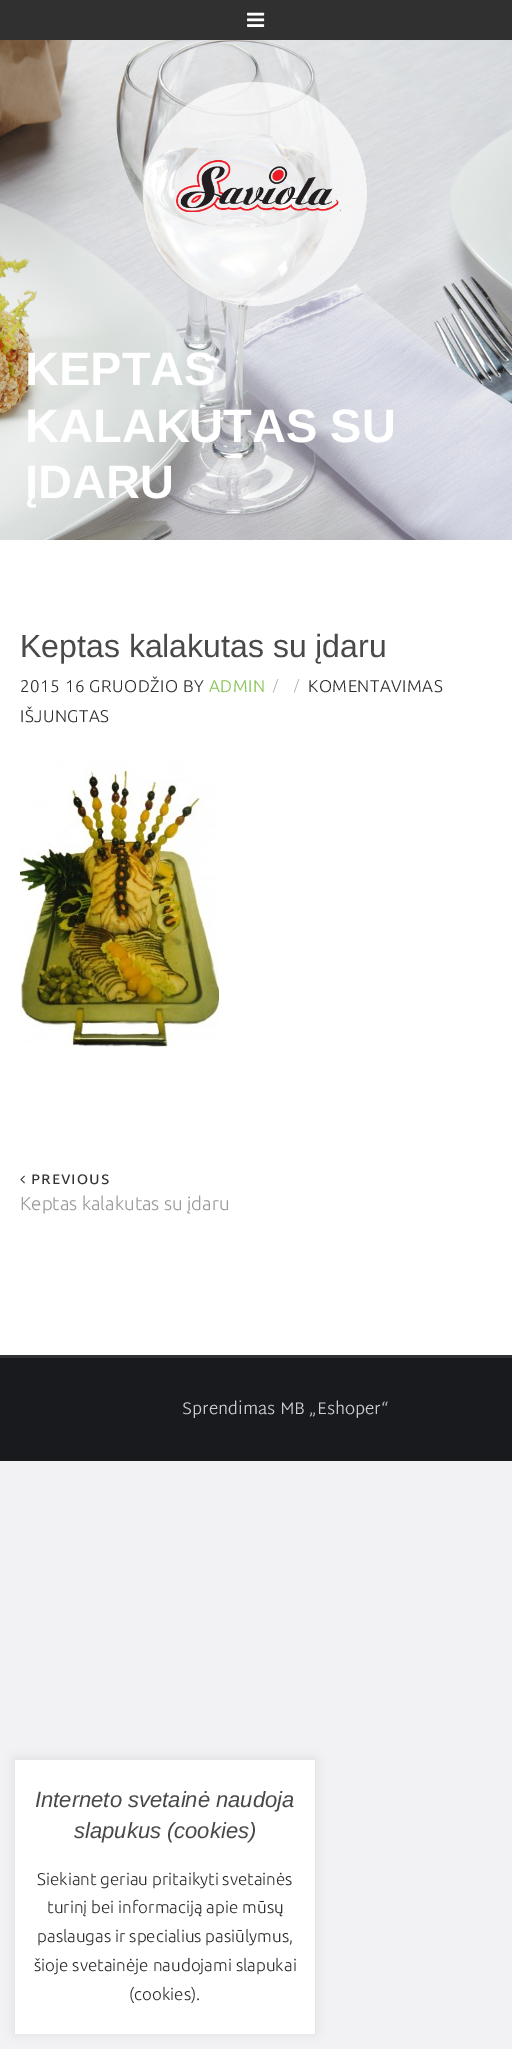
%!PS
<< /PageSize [512 2049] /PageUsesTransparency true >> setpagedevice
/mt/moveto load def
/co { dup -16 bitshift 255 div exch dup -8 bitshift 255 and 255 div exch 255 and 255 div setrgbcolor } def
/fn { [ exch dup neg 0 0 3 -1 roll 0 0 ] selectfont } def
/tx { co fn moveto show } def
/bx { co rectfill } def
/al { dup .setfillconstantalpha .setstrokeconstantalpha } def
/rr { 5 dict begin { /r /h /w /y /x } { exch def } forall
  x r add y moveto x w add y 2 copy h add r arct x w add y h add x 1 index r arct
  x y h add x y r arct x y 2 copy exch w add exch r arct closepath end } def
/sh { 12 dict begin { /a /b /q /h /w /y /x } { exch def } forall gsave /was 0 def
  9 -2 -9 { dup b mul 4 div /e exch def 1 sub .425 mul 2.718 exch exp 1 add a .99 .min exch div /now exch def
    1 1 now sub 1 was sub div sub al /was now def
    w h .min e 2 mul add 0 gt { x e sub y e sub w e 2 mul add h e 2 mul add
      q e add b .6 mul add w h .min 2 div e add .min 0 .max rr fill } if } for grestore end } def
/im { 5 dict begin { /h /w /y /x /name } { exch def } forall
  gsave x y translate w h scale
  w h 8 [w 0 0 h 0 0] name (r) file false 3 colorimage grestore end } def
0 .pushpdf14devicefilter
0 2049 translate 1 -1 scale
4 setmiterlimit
0 0 512 2049 16#F2F2F4 bx
0 540 512 815 16#FFFFFF bx
0 0 512 40 16#303030 bx
(media/1.raw) 247 12 18 15 im
(media/2.raw) 0 40 512 500 im
(media/3.raw) 143 82 224 224 im
(media/4.raw) 20 762 199 285 im
(media/5.raw) 20 1175 5 9 im
0 1358 512 103 16#181A1E bx
0 1355 512 3 16#2F3135 bx
16#ACABAB co
15 1759 300 274 0 5 .3 sh
15 1760 300 274 16#FFFFFF bx
(KEPTAS) 25 385 /LiberationSans-Bold 47 16#FFFFFF tx
(KALAKUTAS SU) 25 442 /LiberationSans-Bold 47 16#FFFFFF tx
(ĮDARU) 25 498 /LiberationSans-Bold 47 16#FFFFFF tx
(Keptas kalakutas su įdaru) 20 657 /LiberationSans-Regular 32 16#494949 tx
/Ubuntu-Light 17 fn
16#2D2D2D co
20 692 mt .5 0 (2015 16 GRUODŽIO BY) ashow
16#7FC249 co
209 692 mt .5 0 (ADMIN) ashow
/Ubuntu-Light 14 fn
16#ABABAB co
273 690 mt .5 0 (/) ashow
294 690 mt .5 0 (/) ashow
/Ubuntu-Light 17 fn
16#2D2D2D co
308 692 mt .5 0 (KOMENTAVIMAS) ashow
20 722 mt .5 0 (IŠJUNGTAS) ashow
/MartelSans-SemiBold 14 fn
16#333333 co
31 1184 mt 1 0 (PREVIOUS) ashow
(Keptas kalakutas su įdaru) 20 1210 /Ubuntu-Light 18.75 16#999999 tx
(Sprendimas MB „Eshoper“) 182 1414 /MartelSans-Light 17 16#CCCDCE tx
(Interneto svetainė naudoja) 35 1807 /LiberationSans-Italic 22 16#494949 tx
(slapukus \(cookies\)) 74 1838 /LiberationSans-Italic 22 16#494949 tx
(Siekiant geriau pritaikyti svetainės) 37 1885 /Ubuntu-Light 17 16#2D2D2D tx
(turinį bei informaciją apie mūsų) 47 1913 /Ubuntu-Light 17 16#2D2D2D tx
(paslaugas ir specialius pasiūlymus,) 37 1942 /Ubuntu-Light 17 16#2D2D2D tx
(šioje svetainėje naudojami slapukai) 34 1971 /Ubuntu-Light 17 16#2D2D2D tx
(\(cookies\).) 129 2000 /Ubuntu-Light 17 16#2D2D2D tx
.poppdf14devicefilter showpage
